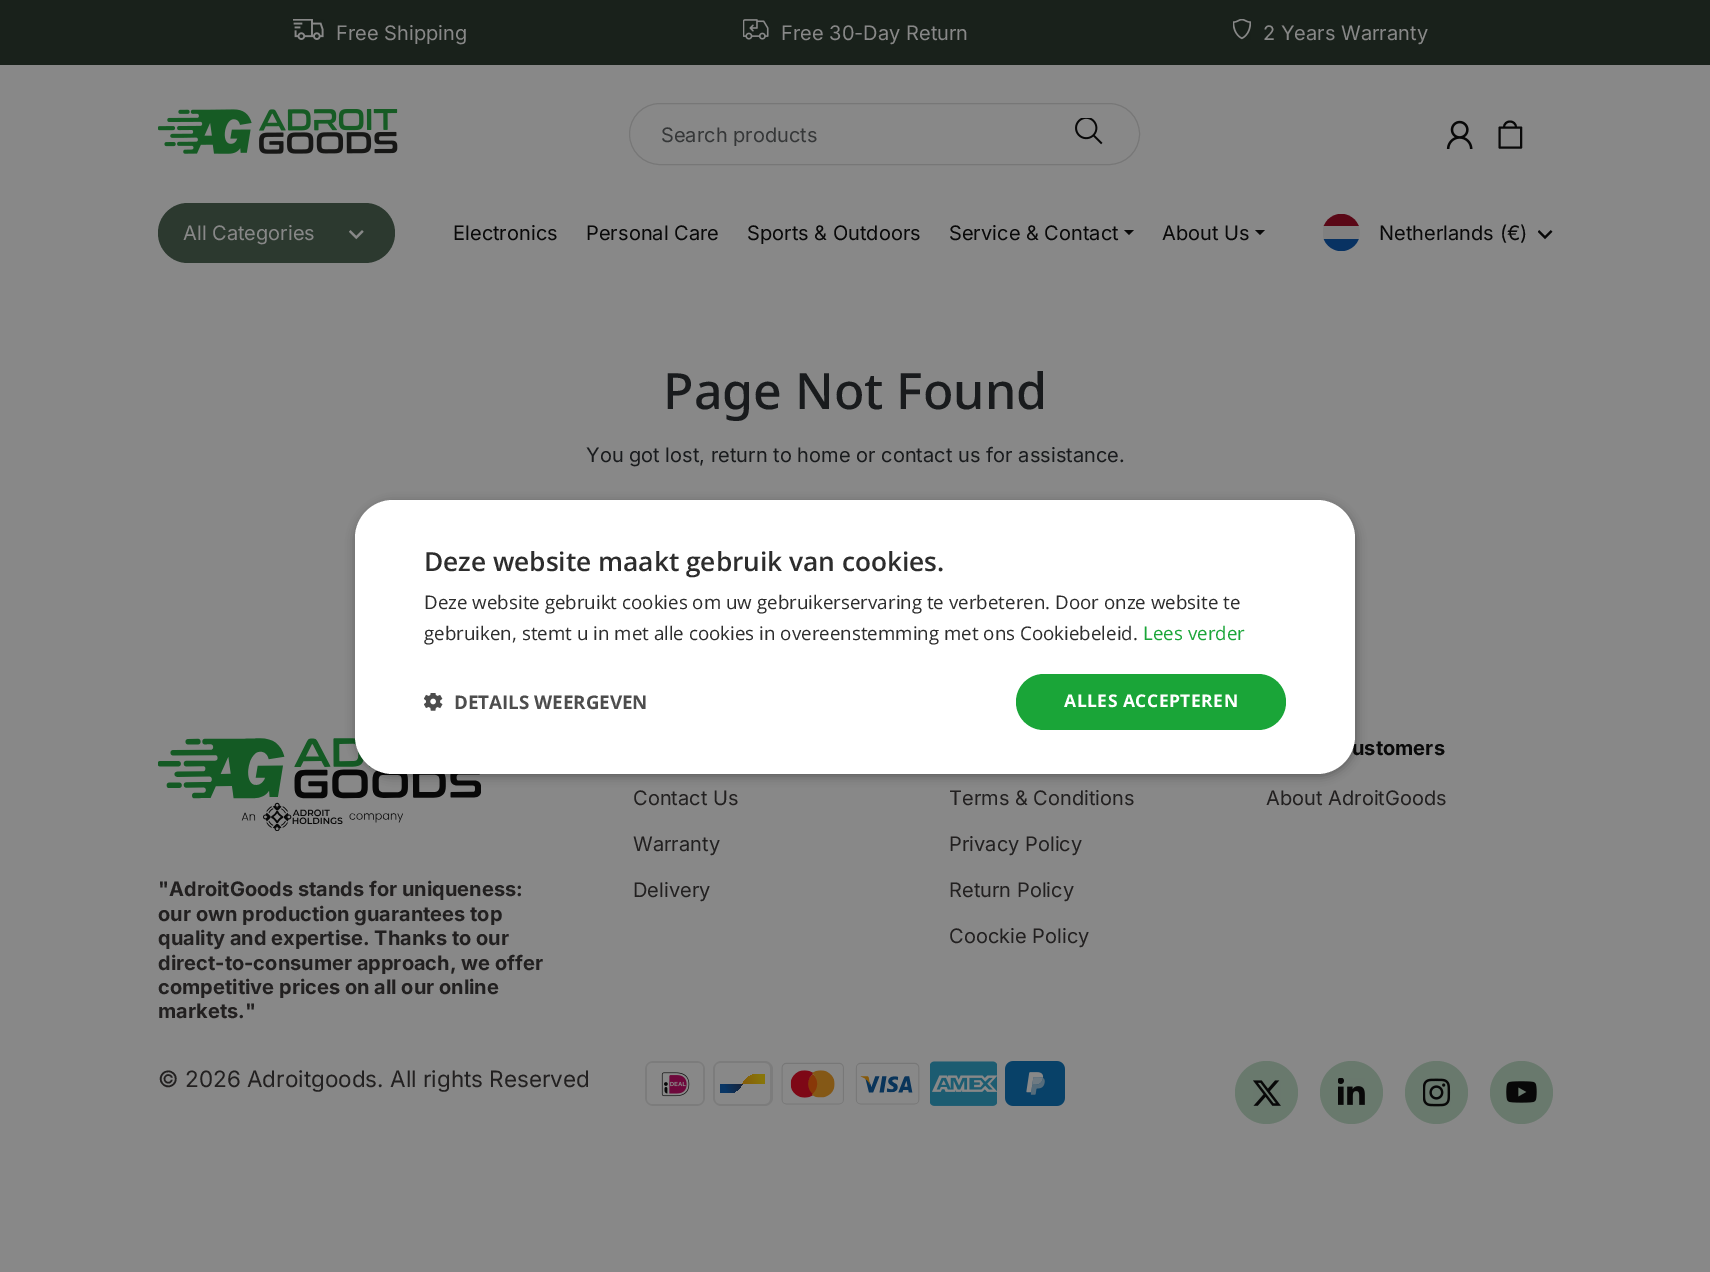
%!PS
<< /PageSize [1710 1272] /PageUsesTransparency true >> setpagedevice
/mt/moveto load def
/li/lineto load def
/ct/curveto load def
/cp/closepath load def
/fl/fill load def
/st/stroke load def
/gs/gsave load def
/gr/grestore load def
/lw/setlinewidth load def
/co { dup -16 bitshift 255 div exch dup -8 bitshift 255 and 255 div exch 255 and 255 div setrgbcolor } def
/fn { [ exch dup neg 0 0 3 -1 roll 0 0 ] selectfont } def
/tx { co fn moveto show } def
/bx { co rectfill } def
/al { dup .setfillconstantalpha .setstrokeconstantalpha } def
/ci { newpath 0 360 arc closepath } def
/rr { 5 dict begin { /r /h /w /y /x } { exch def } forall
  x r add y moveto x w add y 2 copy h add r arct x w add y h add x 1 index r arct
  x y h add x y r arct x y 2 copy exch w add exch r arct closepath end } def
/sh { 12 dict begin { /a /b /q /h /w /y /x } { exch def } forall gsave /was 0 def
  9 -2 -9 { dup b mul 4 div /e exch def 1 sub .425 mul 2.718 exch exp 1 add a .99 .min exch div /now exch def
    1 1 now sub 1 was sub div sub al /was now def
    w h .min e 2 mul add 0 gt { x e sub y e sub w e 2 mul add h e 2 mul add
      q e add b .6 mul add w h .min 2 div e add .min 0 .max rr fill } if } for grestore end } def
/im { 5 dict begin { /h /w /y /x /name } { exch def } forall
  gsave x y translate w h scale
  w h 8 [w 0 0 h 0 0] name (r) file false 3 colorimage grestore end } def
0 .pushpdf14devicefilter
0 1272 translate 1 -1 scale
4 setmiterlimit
0 0 1710 1272 16#888888 bx
0 0 1710 65 16#19211B bx
(media/1.raw) 293 19 31 21 im
(media/2.raw) 743 19 26 21 im
(media/3.raw) 1233 19 18 21 im
(media/4.raw) 158 109 240 45 im
16#777777 co
629.5 103.5 510 61 30.5 rr st
(media/5.raw) 1075 118 28 27 im
(media/6.raw) 1446 120 27 29 im
16#090909 co
2 lw
1 setlinecap
1 setlinejoin
1504 127.5 mt 1504 119.5 1516 119.5 1516 127.5 ct 1499.5 127.5 mt 1499.5 147.5 li 1521 147.5 li 1521 127.5 li cp st
16#2C392F co
158 203 237 60 30 rr fl
(media/7.raw) 349 230 15 10 im
16#090909 co
1124 230 mt 1134 230 li 1129 235 li cp fl
1255 230 mt 1265 230 li 1260 235 li cp fl
(media/8.raw) 1323 214 37 37 im
(media/9.raw) 1538 230 15 10 im
(media/10.raw) 158 738 323 93 im
(media/11.raw) 645 1061 60 45 im
16#7C7C7C co
721 1061 mt 717 1061 713 1065 713 1069 ct 713 1098 li 713 1102 717 1106 721 1106 ct 765 1106 li 769 1106 773 1102 773 1098 ct 773 1069 li 773 1065 769 1061 765 1061 ct cp 720 1063 mt 717 1063 715 1065 715 1068 ct 715 1099 li 715 1102 717 1104 720 1104 ct 765 1104 li 768 1104 770 1102 770 1099 ct 770 1068 li 770 1065 768 1063 765 1063 ct cp eofill
gs 755.5 1074.5 mt 749 1074.5 746 1079 742.5 1084 ct 765 1084 li 765 1074.5 li cp clip newpath
<< /ShadingType 2 /ColorSpace /DeviceRGB /Coords [744 1084 761 1078] /Extend [true true] /Function << /FunctionType 2 /Domain [0 1] /C0 [.525 .365 .035] /C1 [.533 .459 .035] /N 1 >> >> shfill gr
gs 729.5 1093 mt 736 1093 739 1088.5 742.5 1084 ct 720 1084 li 720 1093 li cp clip newpath
<< /ShadingType 2 /ColorSpace /DeviceRGB /Coords [725 1088 741 1082] /Extend [true true] /Function << /FunctionType 2 /Domain [0 1] /C0 [.035 .212 .396] /C1 [.094 .141 .231] /N 1 >> >> shfill gr
(media/12.raw) 781 1062 63 43 im
(media/13.raw) 855 1062 65 43 im
(media/14.raw) 930 1061 67 45 im
(media/15.raw) 1005 1061 60 45 im
16#69796D co
1266.5 1092.5 31.5 ci fl
(media/16.raw) 1253 1080 28 26 im
1351.5 1092.5 31.5 ci fl
(media/17.raw) 1338 1078 27 27 im
1436.5 1092.5 31.5 ci fl
(media/18.raw) 1423 1078 28 29 im
1521.5 1092.5 31.5 ci fl
(media/19.raw) 1506 1081 31 22 im
16#000000 co
356 503 1000 273 38 5 .35 sh
(Free Shipping) 336 40 /Inter-Regular 20 16#888888 tx
(Free 30-Day Return) 781 40 /Inter-Regular 20 16#888888 tx
(2 Years Warranty) 1263 40 /Inter-Regular 20 16#888888 tx
(Search products) 661 142 /Inter-Regular 20 16#353738 tx
(All Categories) 183 240 /Inter-Regular 20 16#888888 tx
(Electronics) 453 240 /Inter-Regular 20 16#090909 tx
(Personal Care) 586 240 /Inter-Regular 20 16#090909 tx
(Sports & Outdoors) 747 240 /Inter-Regular 20 16#090909 tx
(Service & Contact) 949 240 /Inter-Regular 20 16#090909 tx
(About Us) 1162 240 /Inter-Regular 20 16#090909 tx
(Netherlands \(€\)) 1379 240 /Inter-Regular 20 16#090909 tx
(Page Not Found) 663 409 /NotoSans-Medium 50 16#191B1D tx
(You got lost, return to home or contact us for assistance.) 586 462 /Inter-Regular 20 16#191B1D tx
(ustomers) 1352 755 /Inter-Bold 20 16#090909 tx
(About AdroitGoods) 1266 805 /Inter-Regular 20 16#222020 tx
("AdroitGoods stands for uniqueness:) 158 896 /Inter-Bold 20 16#222020 tx
(our own production guarantees top) 158 921 /Inter-Bold 20 16#222020 tx
(quality and expertise. Thanks to our) 158 945 /Inter-Bold 20 16#222020 tx
(direct-to-consumer approach, we offer) 158 970 /Inter-Bold 20 16#222020 tx
(competitive prices on all our online) 158 994 /Inter-Bold 20 16#222020 tx
(markets.") 158 1018 /Inter-Bold 20 16#222020 tx
(Contact Us) 633 805 /Inter-Regular 20 16#222020 tx
(Warranty) 633 851 /Inter-Regular 20 16#222020 tx
(Delivery) 633 897 /Inter-Regular 20 16#222020 tx
(Terms & Conditions) 949 805 /Inter-Regular 20 16#222020 tx
(Privacy Policy) 949 851 /Inter-Regular 20 16#222020 tx
(Return Policy) 949 897 /Inter-Regular 20 16#222020 tx
(Coockie Policy) 949 943 /Inter-Regular 20 16#222020 tx
(© 2026 Adroitgoods. All rights Reserved) 158 1087 /Inter-Regular 22.5 16#222020 tx
16#FFFFFF co
355 500 1000 274 38 rr fl
(Deze website maakt gebruik van cookies.) 424 571 /OpenSans-SemiBold 26.25 16#2D2D2D tx
(Deze website gebruikt cookies om uw gebruikerservaring te verbeteren. Door onze website te) 424 609 /OpenSans-Regular 18.75 16#2D2D2D tx
(gebruiken, stemt u in met alle cookies in overeenstemming met ons Cookiebeleid.) 424 640 /OpenSans-Regular 18.75 16#2D2D2D tx
(Lees verder) 1143 640 /OpenSans-Regular 18.75 16#1AA538 tx
(media/20.raw) 424 693 19 18 im
(DETAILS WEERGEVEN) 454 709 /OpenSans-Bold 18.75 16#4D4D4D tx
16#1AA538 co
1016 674 270 56 28 rr fl
/OpenSans-Bold 17.5 fn
16#FFFFFF co
1064 707 mt .5 0 (ALLES ACCEPTEREN) ashow
.poppdf14devicefilter showpage
